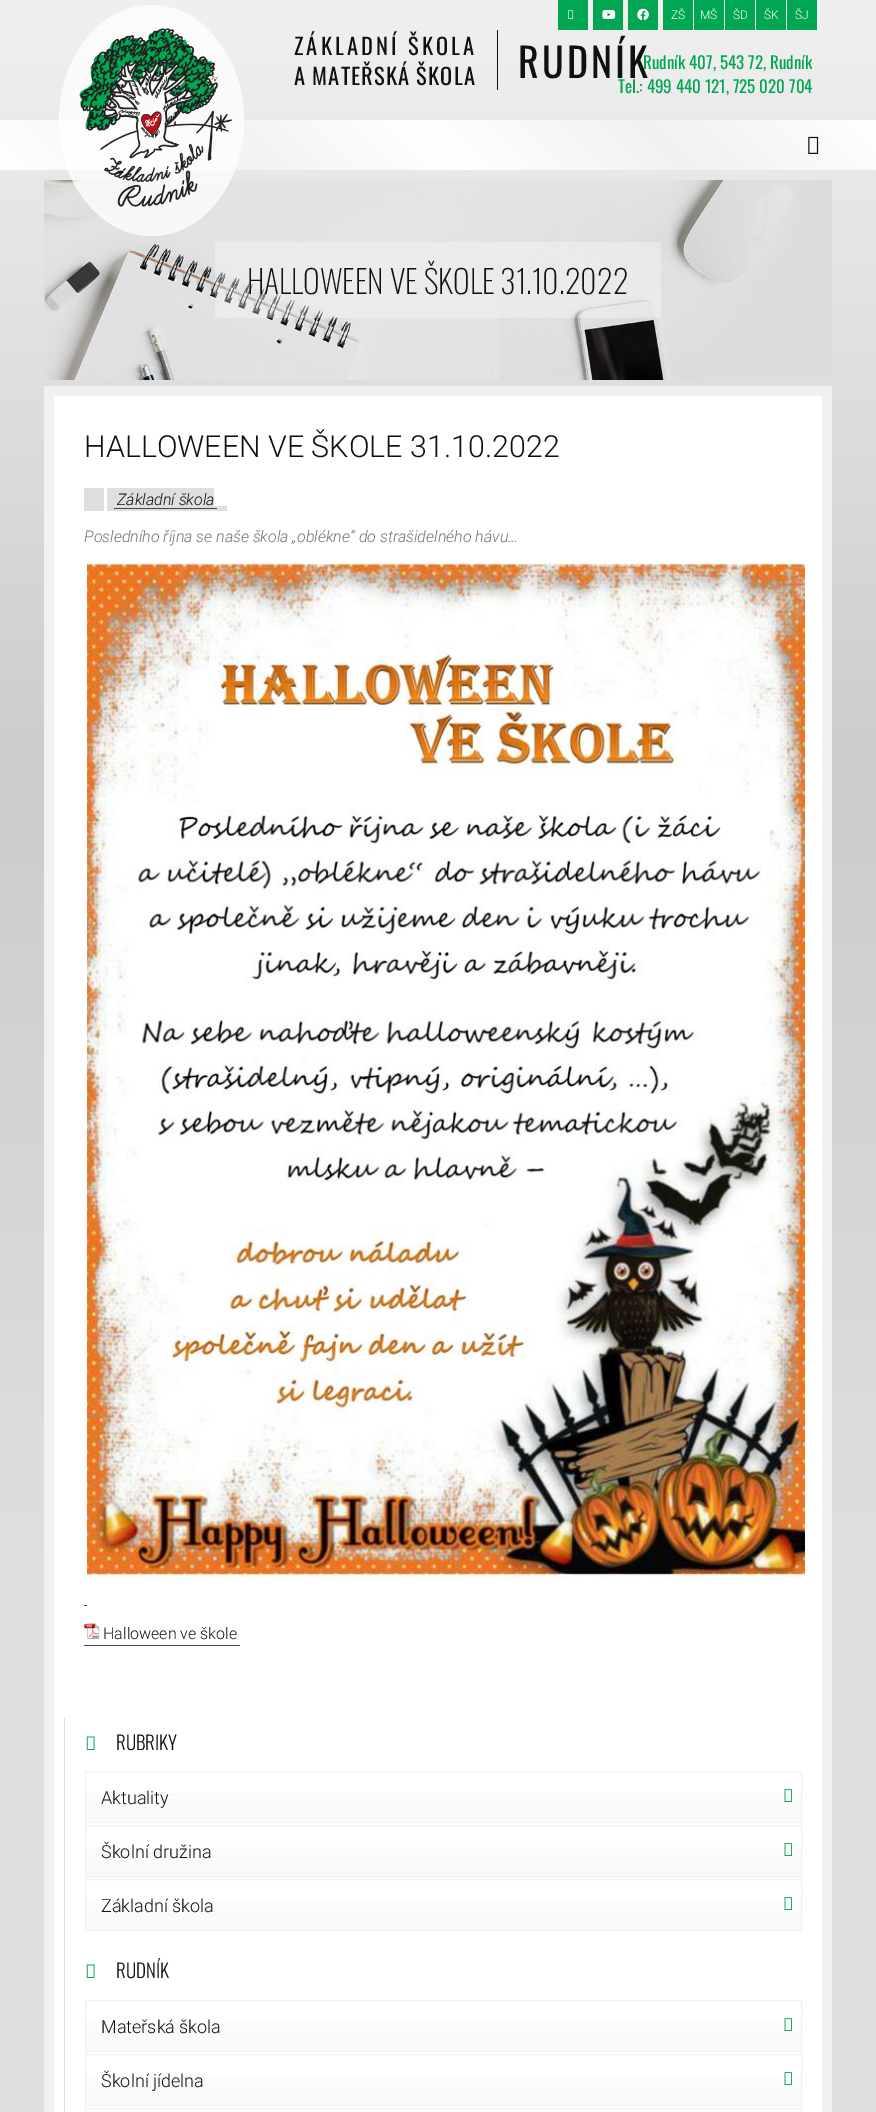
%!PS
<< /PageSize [876 2112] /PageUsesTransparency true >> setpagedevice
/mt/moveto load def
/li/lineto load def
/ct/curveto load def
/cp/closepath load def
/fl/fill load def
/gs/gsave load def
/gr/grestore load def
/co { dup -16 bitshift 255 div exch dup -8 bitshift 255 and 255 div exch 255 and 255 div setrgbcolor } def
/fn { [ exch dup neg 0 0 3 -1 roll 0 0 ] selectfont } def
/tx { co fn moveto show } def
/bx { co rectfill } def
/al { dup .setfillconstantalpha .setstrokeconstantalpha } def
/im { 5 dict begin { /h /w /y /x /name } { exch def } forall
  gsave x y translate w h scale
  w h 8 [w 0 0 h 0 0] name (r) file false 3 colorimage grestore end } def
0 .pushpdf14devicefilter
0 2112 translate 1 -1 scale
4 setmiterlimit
0 0 876 2112 16#FFFFFF bx
gs 0 0 mt 876 0 li 876 2112 li 0 2112 li cp clip newpath
<< /ShadingType 2 /ColorSpace /DeviceRGB /Coords [438 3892 438 0] /Extend [true true] /Function << /FunctionType 3 /Domain [0 1] /Functions [<< /FunctionType 2 /Domain [0 1] /C0 [1 1 1] /C1 [1 1 1] /N 1 >> << /FunctionType 2 /Domain [0 1] /C0 [1 1 1] /C1 [.875 .875 .875] /N 1 >> << /FunctionType 2 /Domain [0 1] /C0 [.875 .875 .875] /C1 [.875 .875 .875] /N 1 >> << /FunctionType 2 /Domain [0 1] /C0 [.875 .875 .875] /C1 [.8 .8 .8] /N 1 >> << /FunctionType 2 /Domain [0 1] /C0 [.8 .8 .8] /C1 [.941 .941 .941] /N 1 >>] /Bounds [.2 .4 .6 .8] /Encode [0 1 0 1 0 1 0 1 0 1] >> >> shfill gr
gs 0 120 mt 876 120 li 876 170 li 0 170 li cp clip newpath
<< /ShadingType 2 /ColorSpace /DeviceRGB /Coords [207 377 670 -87] /Extend [true true] /Function << /FunctionType 3 /Domain [0 1] /Functions [<< /FunctionType 2 /Domain [0 1] /C0 [1 1 1] /C1 [.945 .945 .945] /N 1 >> << /FunctionType 2 /Domain [0 1] /C0 [.945 .945 .945] /C1 [1 1 1] /N 1 >> << /FunctionType 2 /Domain [0 1] /C0 [1 1 1] /C1 [.945 .945 .945] /N 1 >> << /FunctionType 2 /Domain [0 1] /C0 [.945 .945 .945] /C1 [1 1 1] /N 1 >>] /Bounds [.25 .5 .75] /Encode [0 1 0 1 0 1 0 1] >> >> shfill gr
(media/6.raw) 44 180 788 200 im
0.75 al
151.5 5 mt 202.5 5 244 56.5 244 120.5 ct 244 184.5 202.5 236 151.5 236 ct 100.5 236 59 184.5 59 120.5 ct 59 56.5 100.5 5 151.5 5 ct cp fl
1 al
(media/1.raw) 79 28 154 179 im
558 0 30 30 16#00A651 bx
(media/2.raw) 568 10 6 9 im
593 0 30 30 16#00A651 bx
(media/3.raw) 602 10 14 9 im
628 0 30 30 16#00A651 bx
(media/4.raw) 637 8 12 13 im
663 0 30 30 16#00A651 bx
694 0 30 30 16#00A651 bx
725 0 30 30 16#00A651 bx
756 0 30 30 16#00A651 bx
787 0 30 30 16#00A651 bx
497 30 1 60 16#101010 bx
(media/5.raw) 808 136 11 18 im
0.3 al
215 242 446 76 16#FFFFFF bx
1 al
44 386 788 1726 16#F1F1F1 bx
54 396 768 1716 16#FFFFFF bx
84 488 20 23 16#DFDFDF bx
107 488 107 23 16#DFDFDF bx
214 506 13 5 16#DFDFDF bx
114 508 103 1 16#434445 bx
(media/7.raw) 87 563 718 1016 im
84 1605 3 1 16#434445 bx
(media/8.raw) 84 1623 16 16 im
84 1645 156 1 16#434445 bx
64 1718 1 394 16#DFDFDF bx
(media/9.raw) 86 1736 9 14 im
gs 86 1793 mt 801 1793 li 801 1822 li 86 1822 li cp clip newpath
<< /ShadingType 2 /ColorSpace /DeviceRGB /Coords [444 1822 444 1772] /Extend [true true] /Function << /FunctionType 2 /Domain [0 1] /C0 [.976 .976 .976] /C1 [1 1 1] /N 1 >> >> shfill gr
16#F1F1F1 co
85.5 1771.5 716 51 rectstroke
(media/10.raw) 784 1789 8 13 im
gs 86 1847 mt 801 1847 li 801 1876 li 86 1876 li cp clip newpath
<< /ShadingType 2 /ColorSpace /DeviceRGB /Coords [444 1876 444 1826] /Extend [true true] /Function << /FunctionType 2 /Domain [0 1] /C0 [.976 .976 .976] /C1 [1 1 1] /N 1 >> >> shfill gr
85.5 1825.5 716 51 rectstroke
(media/10.raw) 784 1843 8 13 im
gs 86 1901 mt 801 1901 li 801 1930 li 86 1930 li cp clip newpath
<< /ShadingType 2 /ColorSpace /DeviceRGB /Coords [444 1930 444 1880] /Extend [true true] /Function << /FunctionType 2 /Domain [0 1] /C0 [.976 .976 .976] /C1 [1 1 1] /N 1 >> >> shfill gr
85.5 1879.5 716 51 rectstroke
(media/10.raw) 784 1897 8 13 im
(media/9.raw) 86 1964 9 14 im
gs 86 2022 mt 801 2022 li 801 2051 li 86 2051 li cp clip newpath
<< /ShadingType 2 /ColorSpace /DeviceRGB /Coords [444 2051 444 2001] /Extend [true true] /Function << /FunctionType 2 /Domain [0 1] /C0 [.976 .976 .976] /C1 [1 1 1] /N 1 >> >> shfill gr
85.5 2000.5 716 51 rectstroke
(media/10.raw) 784 2018 8 13 im
gs 86 2076 mt 801 2076 li 801 2105 li 86 2105 li cp clip newpath
<< /ShadingType 2 /ColorSpace /DeviceRGB /Coords [444 2105 444 2055] /Extend [true true] /Function << /FunctionType 2 /Domain [0 1] /C0 [.976 .976 .976] /C1 [1 1 1] /N 1 >> >> shfill gr
85.5 2054.5 716 51 rectstroke
(media/10.raw) 784 2072 8 13 im
85.5 2108.5 716 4 rectstroke
(ZŠ) 671 19 /Roboto-Light 12 16#FFFFFF tx
(MŠ) 700 19 /Roboto-Light 12 16#FFFFFF tx
(ŠD) 733 19 /Roboto-Light 12 16#FFFFFF tx
(ŠK) 764 19 /Roboto-Light 12 16#FFFFFF tx
(ŠJ) 795 19 /Roboto-Light 12 16#FFFFFF tx
/Oswald-Regular 22.5 fn
16#101010 co
294 55 mt 3.1 0 (ZÁKLADNÍ ŠKOLA) ashow
294 85 mt 1.1 0 (A MATEŘSKÁ ŠKOLA) ashow
/Oswald-Regular 40 fn
518 78 mt 3.1 0 (RUDNÍK) ashow
(Rudník 407, 543 72, Rudník) 643 69 /Oswald-Regular 17 16#00A651 tx
(Tel.: 499 440 121, 725 020 704) 618 93 /Oswald-Regular 17 16#00A651 tx
(HALLOWEEN VE ŠKOLE 31.10.2022) 247 294 /Oswald-ExtraLight 32 16#101010 tx
(HALLOWEEN VE ŠKOLE 31.10.2022) 84 457 /Roboto-Light 30.4 16#101010 tx
(Základní škola) 117 505 /Roboto-LightItalic 16 16#101010 tx
(Posledního října se naše škola „oblékne“ do strašidelného hávu…) 84 542 /Roboto-LightItalic 16 16#737373 tx
(Halloween ve škole) 103 1639 /Roboto-Light 16 16#101010 tx
(RUBRIKY) 116 1750 /Oswald-Light 19 16#101010 tx
(Aktuality) 101 1804 /Roboto-Light 18 16#101010 tx
(Školní družina) 101 1858 /Roboto-Light 18 16#101010 tx
(Základní škola) 101 1912 /Roboto-Light 18 16#101010 tx
(RUDNÍK) 116 1978 /Oswald-Light 19 16#101010 tx
(Mateřská škola) 101 2033 /Roboto-Light 18 16#101010 tx
(Školní jídelna) 101 2087 /Roboto-Light 18 16#101010 tx
.poppdf14devicefilter showpage
